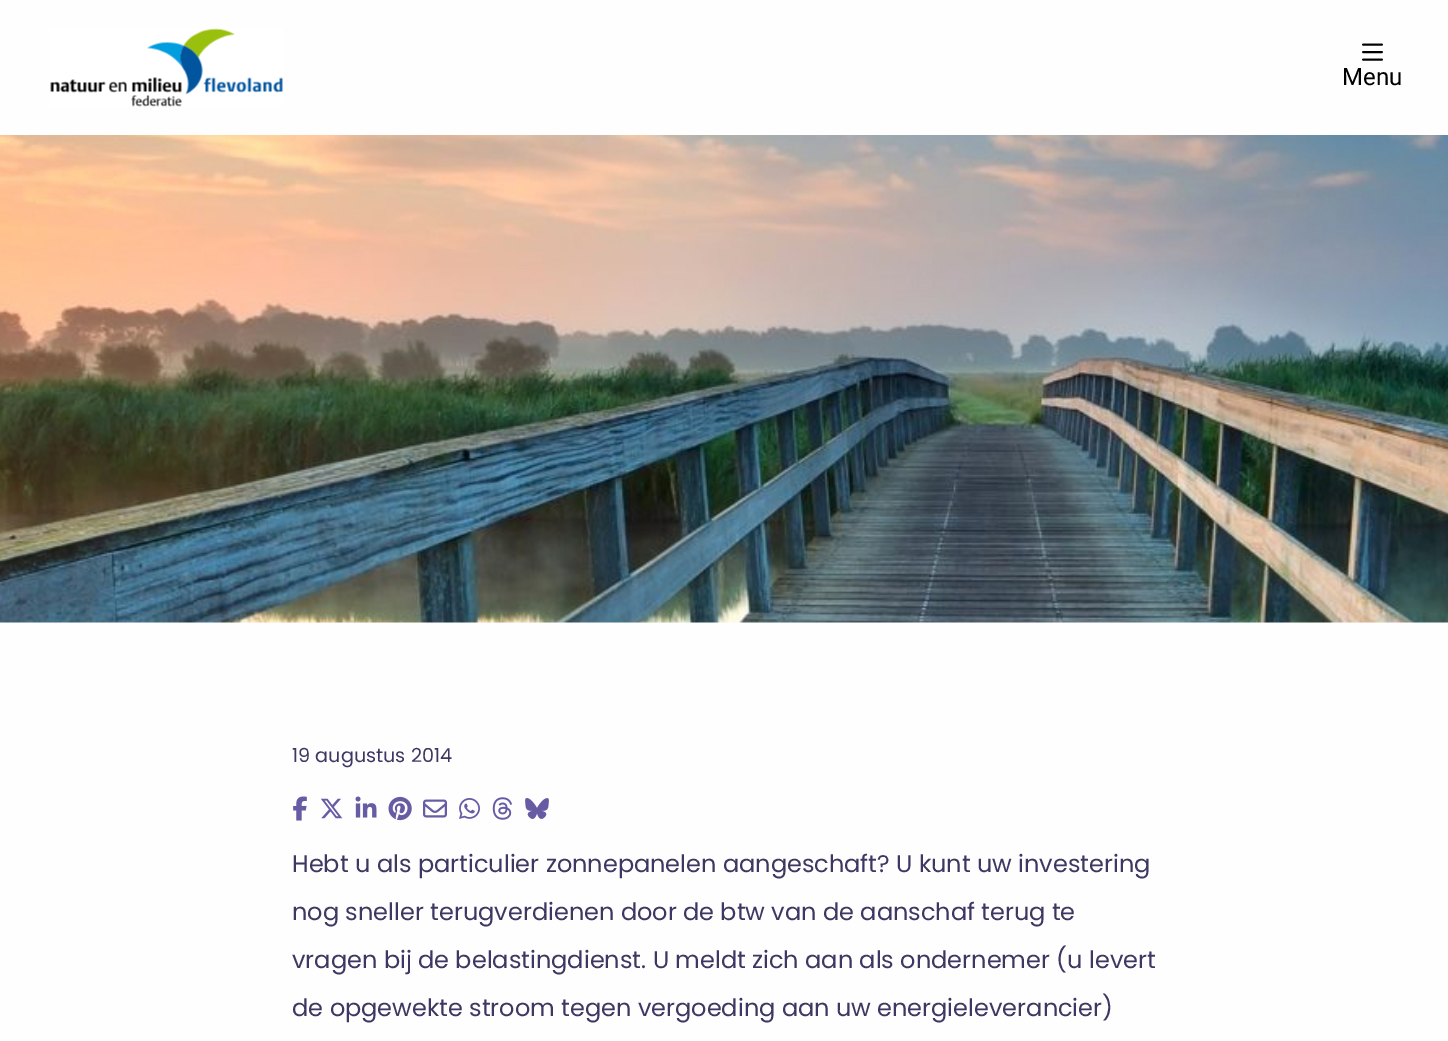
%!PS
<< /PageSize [1448 1041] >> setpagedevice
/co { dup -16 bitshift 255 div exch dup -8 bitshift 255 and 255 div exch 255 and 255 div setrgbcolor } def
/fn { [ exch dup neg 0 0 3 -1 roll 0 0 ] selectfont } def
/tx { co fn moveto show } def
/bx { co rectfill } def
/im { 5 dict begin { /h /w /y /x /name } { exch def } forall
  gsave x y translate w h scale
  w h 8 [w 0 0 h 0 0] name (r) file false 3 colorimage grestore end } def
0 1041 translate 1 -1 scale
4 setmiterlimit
0 0 1448 1041 16#FEFEFE bx
(media/1.raw) 50 28 233 79 im
(media/2.raw) 1362 43 21 18 im
(media/3.raw) 0 135 1448 488 im
(media/4.raw) 293 796 14 25 im
(media/5.raw) 320 798 23 21 im
(media/6.raw) 355 796 22 22 im
(media/7.raw) 388 796 24 25 im
(media/8.raw) 423 799 24 19 im
(media/9.raw) 459 798 21 21 im
(media/10.raw) 492 797 21 23 im
(media/11.raw) 525 798 24 21 im
(Menu) 1342 85 /Roboto-Regular 24 16#000000 tx
(19 augustus 2014) 292 762 /Poppins-Regular 19.25 16#3E3763 tx
(Hebt u als particulier zonnepanelen aangeschaft? U kunt uw investering) 292 872 /Poppins-Regular 24 16#3E3763 tx
(nog sneller terugverdienen door de btw van de aanschaf terug te) 292 920 /Poppins-Regular 24 16#3E3763 tx
(vragen bij de belastingdienst. U meldt zich aan als ondernemer \(u levert) 292 968 /Poppins-Regular 24 16#3E3763 tx
(de opgewekte stroom tegen vergoeding aan uw energieleverancier\)) 292 1016 /Poppins-Regular 24 16#3E3763 tx
showpage
